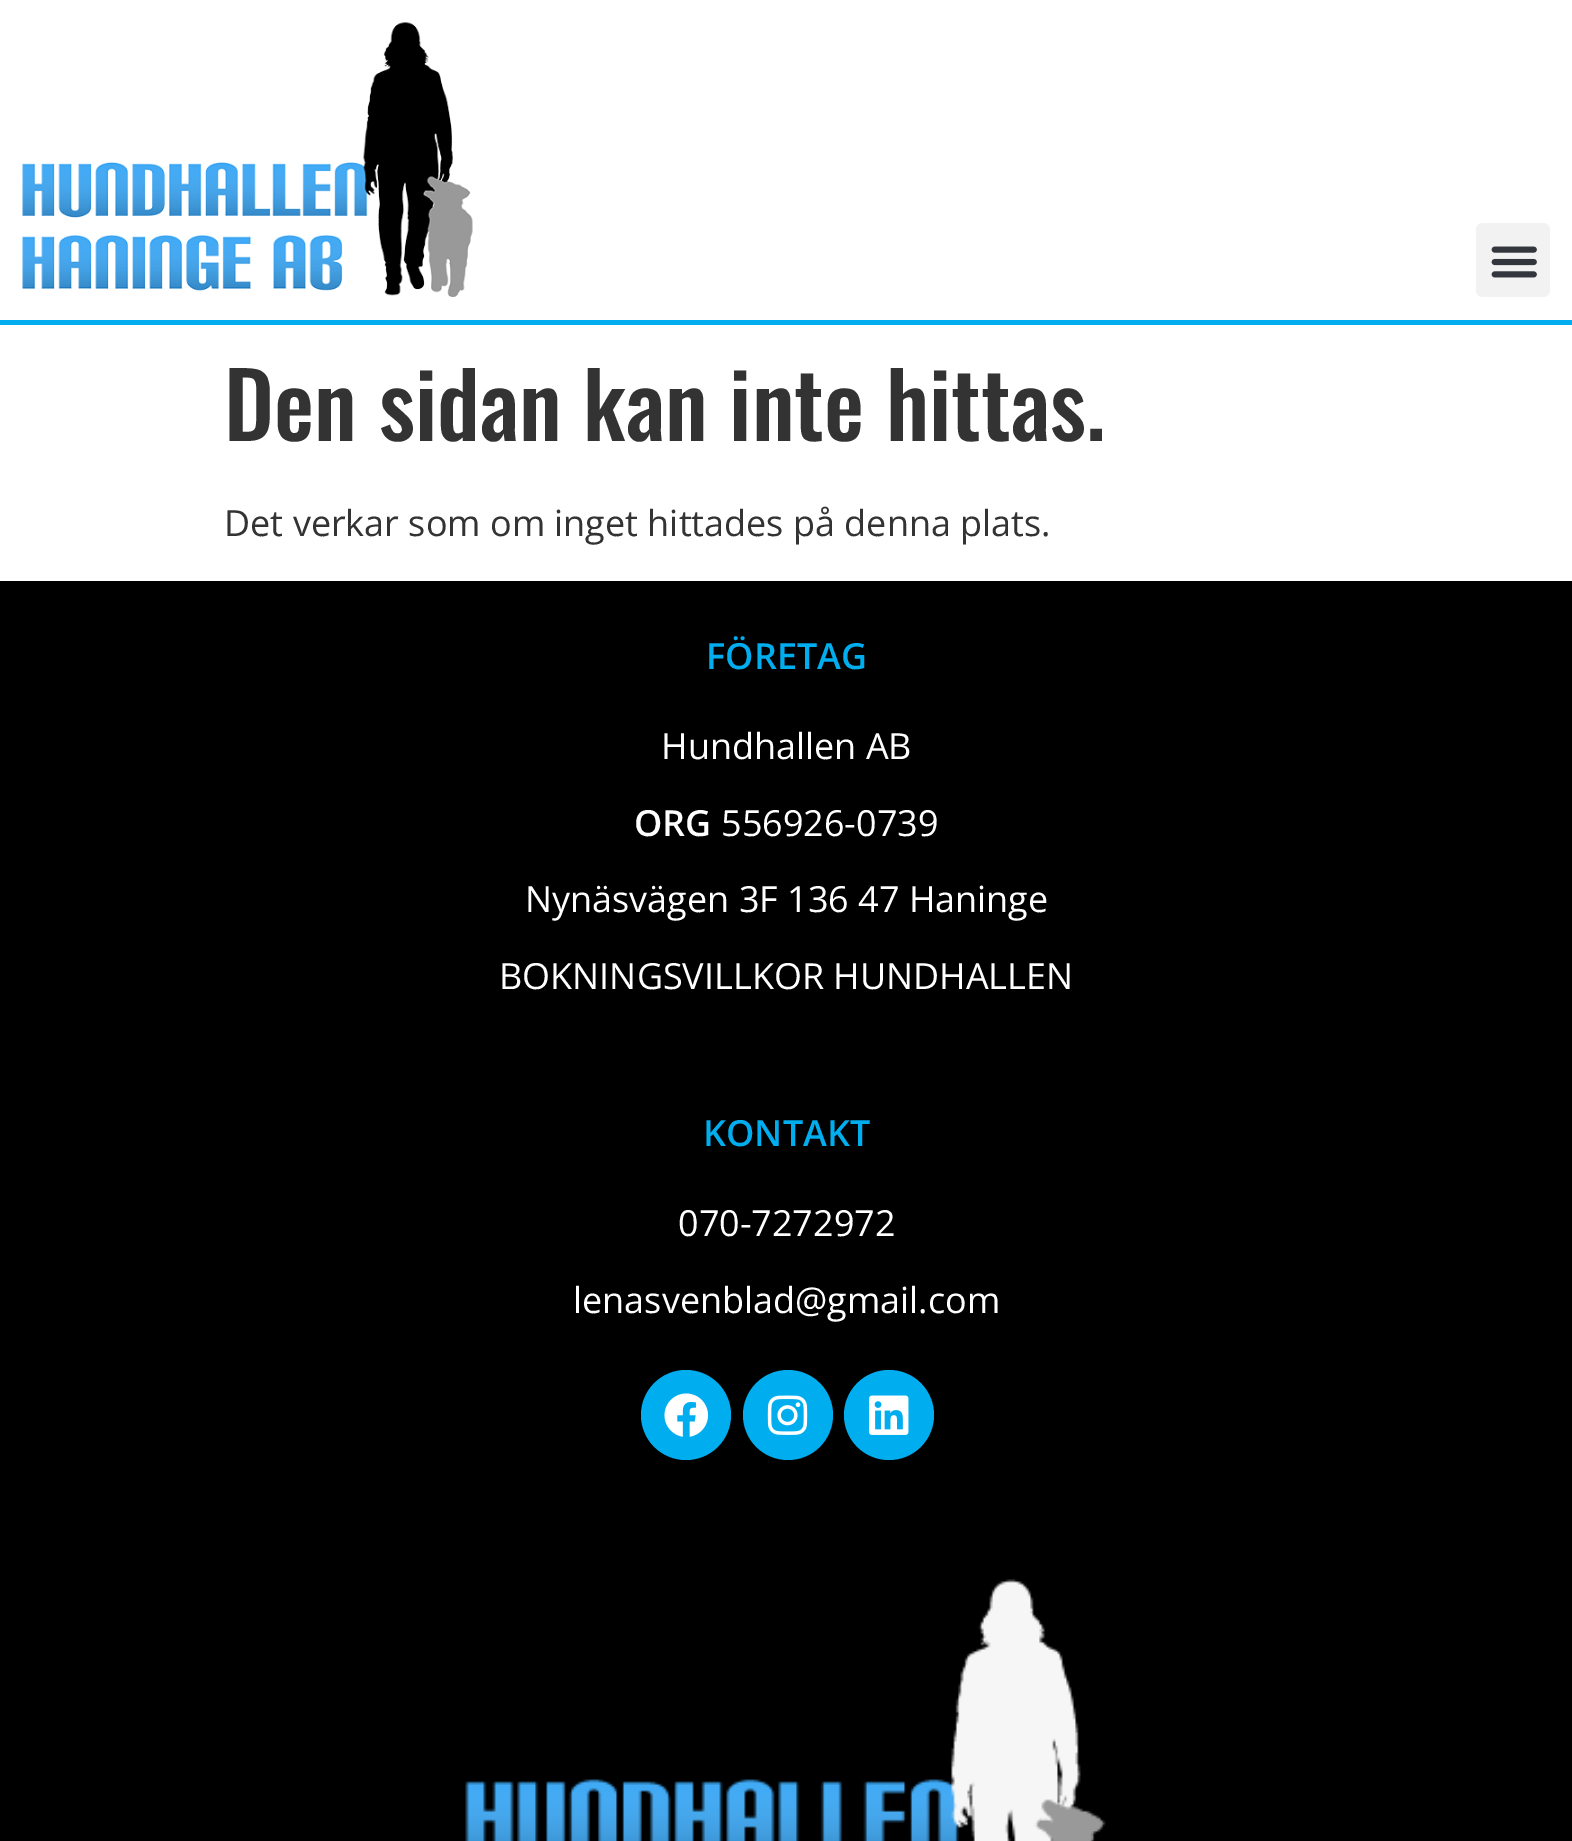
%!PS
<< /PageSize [1572 1841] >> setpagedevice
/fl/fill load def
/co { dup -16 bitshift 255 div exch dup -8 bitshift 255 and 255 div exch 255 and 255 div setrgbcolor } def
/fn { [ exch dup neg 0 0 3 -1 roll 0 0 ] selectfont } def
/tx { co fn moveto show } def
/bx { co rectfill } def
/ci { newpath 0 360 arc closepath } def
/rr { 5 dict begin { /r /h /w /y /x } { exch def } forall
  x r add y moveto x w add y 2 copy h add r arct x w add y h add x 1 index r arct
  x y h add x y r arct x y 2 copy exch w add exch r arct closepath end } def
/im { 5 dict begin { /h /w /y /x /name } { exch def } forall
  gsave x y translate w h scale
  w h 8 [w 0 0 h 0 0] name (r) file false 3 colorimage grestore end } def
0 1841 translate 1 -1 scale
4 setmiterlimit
0 0 1572 1841 16#FFFFFF bx
0 320 1572 5 16#00AEF0 bx
(media/1.raw) 22 22 451 275 im
16#F2F2F2 co
1476 223 74 74 7 rr fl
(media/2.raw) 1491 246 46 32 im
0 581 1572 1260 16#000000 bx
16#00AEF0 co
686 1415 45 ci fl
(media/3.raw) 664 1393 45 44 im
788 1415 45 ci fl
(media/4.raw) 767 1395 41 40 im
889 1415 45 ci fl
(media/5.raw) 869 1395 40 40 im
(media/6.raw) 465 1579 641 262 im
(Den sidan kan inte hittas.) 224 441 /Oswald-Medium 90 16#333333 tx
(Det verkar som om inget hittades på denna plats.) 224 536 /OpenSans-Regular 36 16#333333 tx
(FÖRETAG) 706 669 /OpenSans-SemiBold 36 16#00AEF0 tx
(Hundhallen AB) 661 759 /OpenSans-Regular 36 16#FFFFFF tx
(ORG) 634 836 /OpenSans-SemiBold 36 16#FFFFFF tx
(556926-0739) 721 836 /OpenSans-Regular 36 16#FFFFFF tx
(Nynäsvägen 3F 136 47 Haninge) 525 912 /OpenSans-Regular 36 16#FFFFFF tx
(BOKNINGSVILLKOR HUNDHALLEN) 499 989 /OpenSans-Regular 36 16#FFFFFF tx
(KONTAKT) 703 1146 /OpenSans-SemiBold 36 16#00AEF0 tx
(070-7272972) 678 1236 /OpenSans-Regular 36 16#FFFFFF tx
(lenasvenblad@gmail.com) 573 1313 /OpenSans-Regular 36 16#FFFFFF tx
showpage
